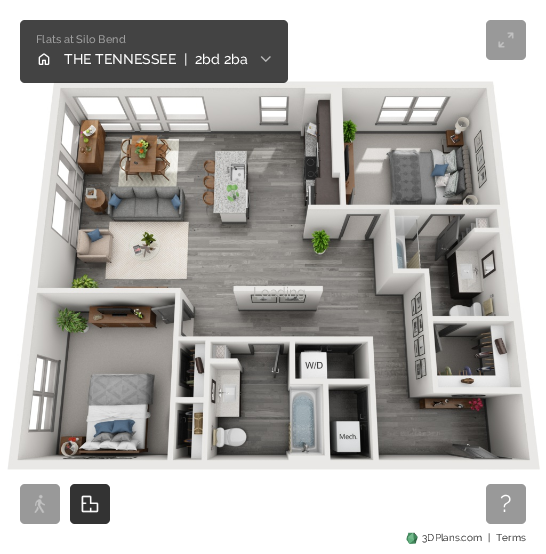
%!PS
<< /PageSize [546 554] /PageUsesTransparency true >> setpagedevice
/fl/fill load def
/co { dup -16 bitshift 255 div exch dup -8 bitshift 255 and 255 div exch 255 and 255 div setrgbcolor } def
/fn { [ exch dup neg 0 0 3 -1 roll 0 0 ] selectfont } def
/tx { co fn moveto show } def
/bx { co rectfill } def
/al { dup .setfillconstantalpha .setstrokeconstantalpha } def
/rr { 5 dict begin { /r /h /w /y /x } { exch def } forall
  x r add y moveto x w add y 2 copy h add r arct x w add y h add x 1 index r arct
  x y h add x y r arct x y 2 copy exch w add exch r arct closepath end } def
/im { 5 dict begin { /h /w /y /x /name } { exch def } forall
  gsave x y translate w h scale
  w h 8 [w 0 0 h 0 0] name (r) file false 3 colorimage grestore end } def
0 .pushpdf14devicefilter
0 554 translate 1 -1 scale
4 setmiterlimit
0 0 546 554 16#FFFFFF bx
(media/4.raw) 7 81 533 389 im
0.8 al
16#141414 co
20 20 268 63 5 rr fl
1 al
(media/1.raw) 38 53 12 12 im
(media/2.raw) 260 56 11 6 im
16#999999 co
486 20 40 40 5 rr fl
(media/3.raw) 498 32 16 16 im
20 484 40 40 5 rr fl
(media/5.raw) 34 494 11 19 im
16#333333 co
70 484 40 40 5 rr fl
(media/6.raw) 81 495 18 18 im
16#999999 co
486 484 40 40 5 rr fl
(media/7.raw) 406 532 12 12 im
(Flats at Silo Bend) 36 43 /Raleway-Medium 11 16#9F9F9F tx
(THE TENNESSEE) 64 64 /Raleway-Medium 14 16#FFFFFF tx
(|) 184 64 /Raleway-Medium 14 16#FFFFFF tx
(2bd 2ba) 195 64 /Raleway-Medium 14 16#FFFFFF tx
(Loading.) 253 297 /Raleway-Regular 14 16#B7B6B2 tx
(?) 500 512 /Raleway-Regular 24 16#FFFFFF tx
(3DPlans.com) 422 541 /Raleway-Regular 10 16#222222 tx
(|) 488 541 /Raleway-Regular 10 16#444444 tx
(Terms) 496 541 /Raleway-Regular 10 16#222222 tx
.poppdf14devicefilter showpage
